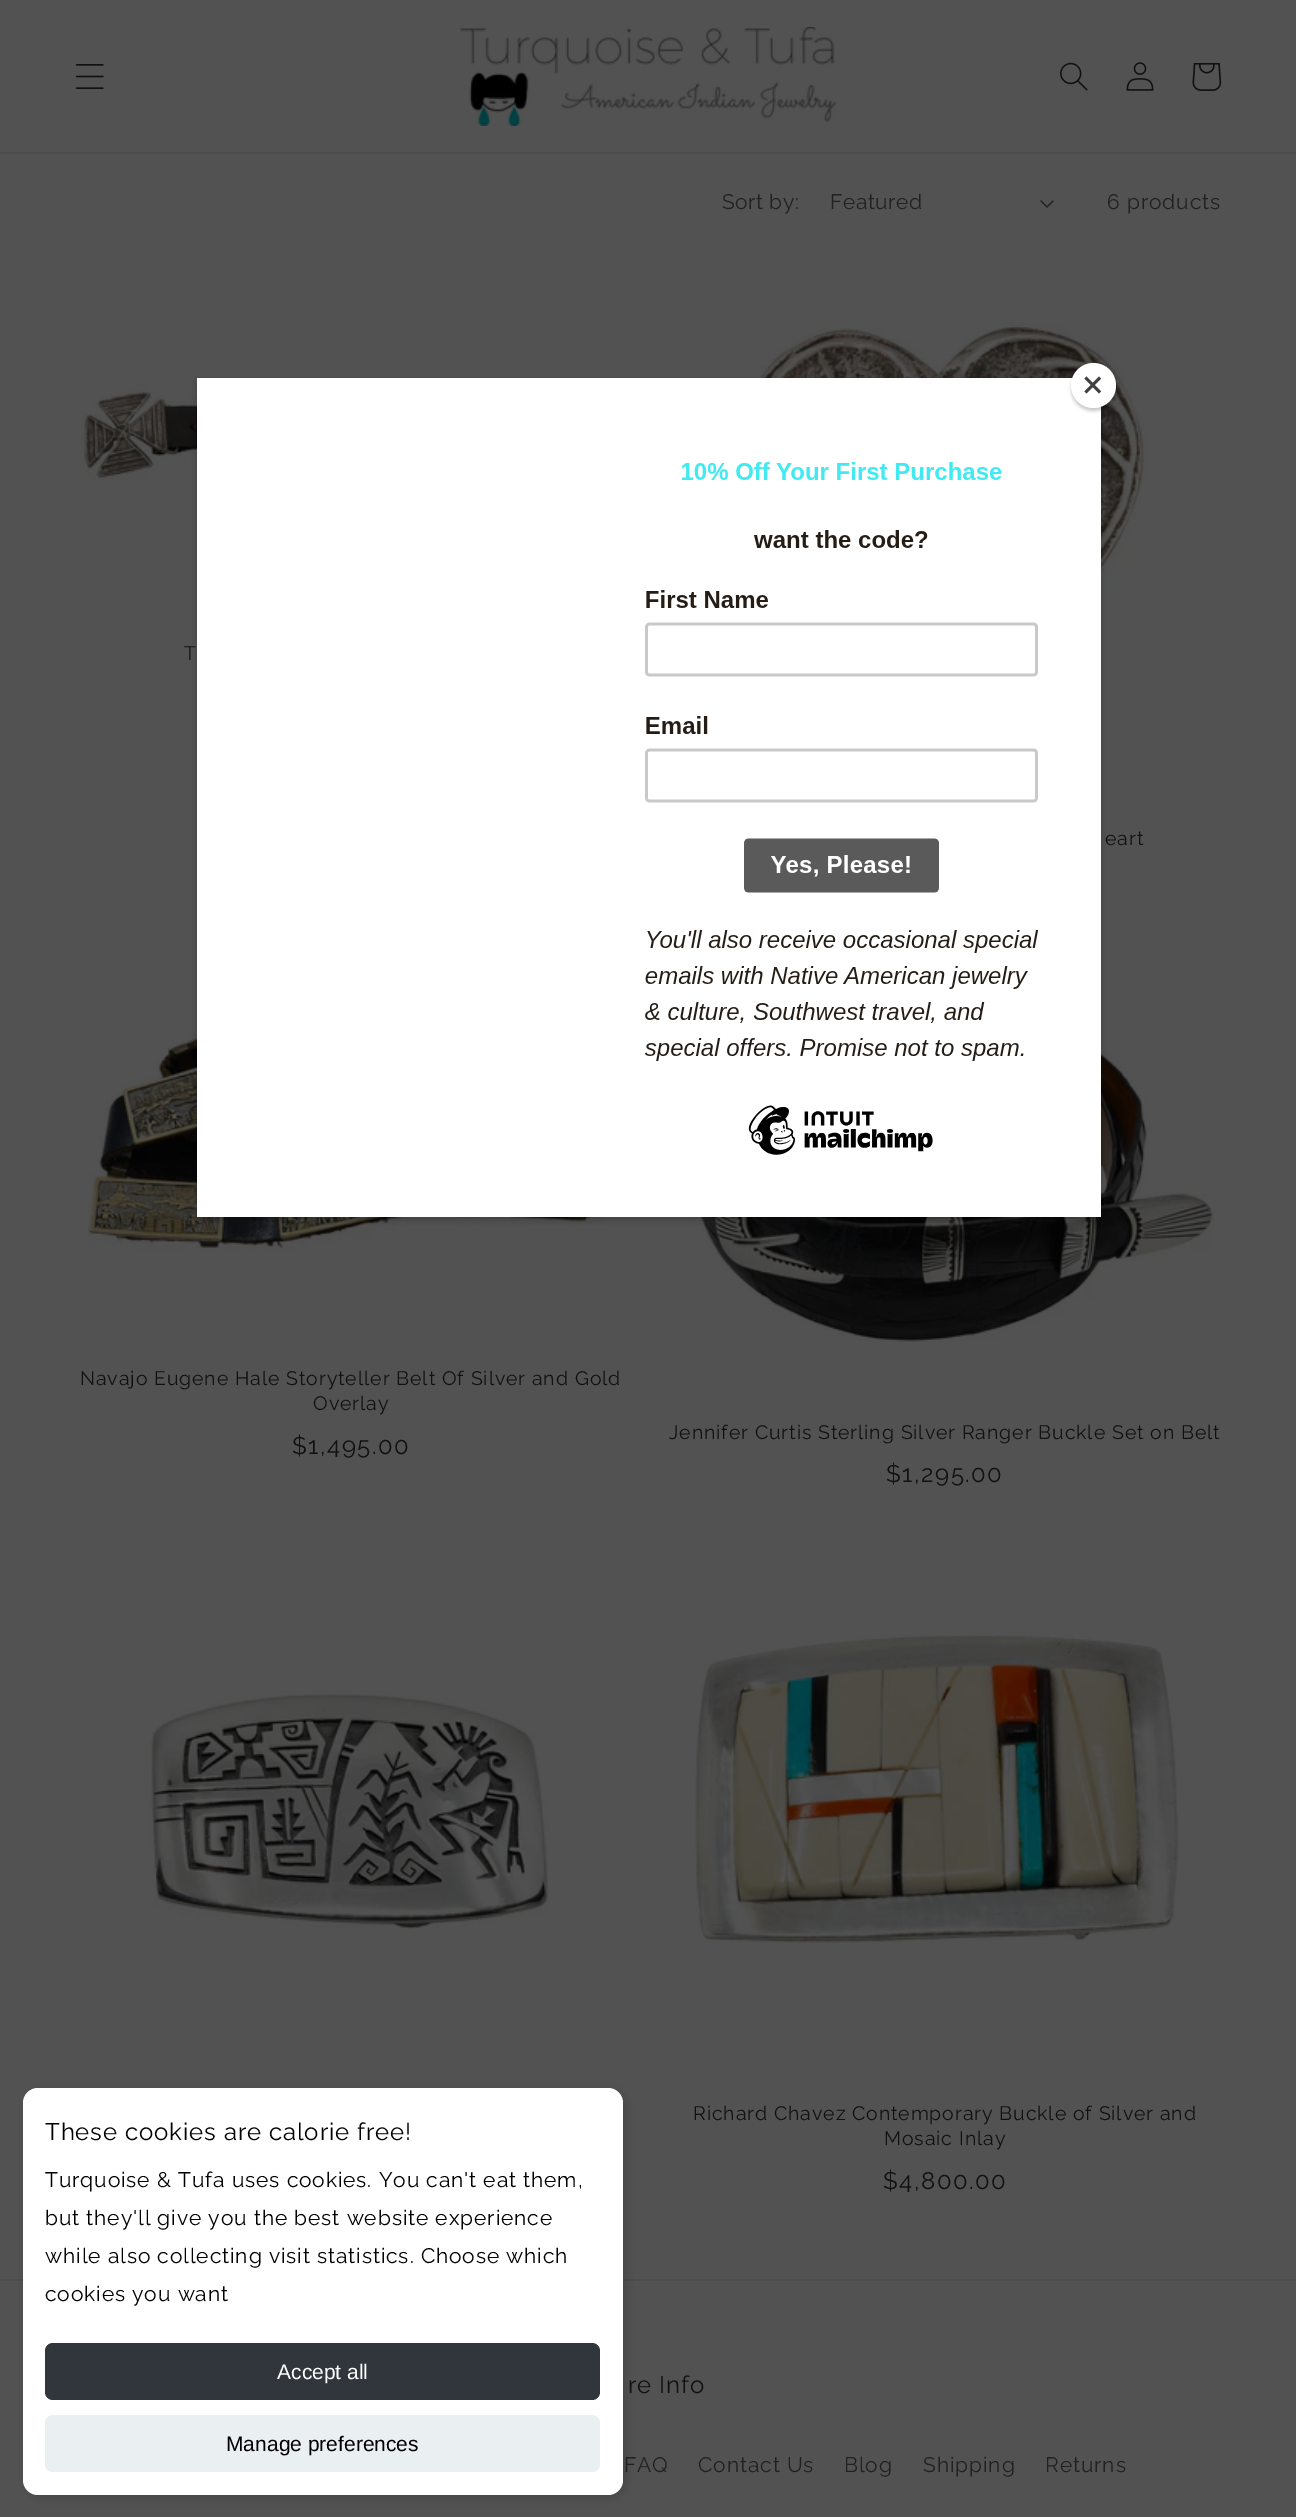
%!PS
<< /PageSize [1296 2517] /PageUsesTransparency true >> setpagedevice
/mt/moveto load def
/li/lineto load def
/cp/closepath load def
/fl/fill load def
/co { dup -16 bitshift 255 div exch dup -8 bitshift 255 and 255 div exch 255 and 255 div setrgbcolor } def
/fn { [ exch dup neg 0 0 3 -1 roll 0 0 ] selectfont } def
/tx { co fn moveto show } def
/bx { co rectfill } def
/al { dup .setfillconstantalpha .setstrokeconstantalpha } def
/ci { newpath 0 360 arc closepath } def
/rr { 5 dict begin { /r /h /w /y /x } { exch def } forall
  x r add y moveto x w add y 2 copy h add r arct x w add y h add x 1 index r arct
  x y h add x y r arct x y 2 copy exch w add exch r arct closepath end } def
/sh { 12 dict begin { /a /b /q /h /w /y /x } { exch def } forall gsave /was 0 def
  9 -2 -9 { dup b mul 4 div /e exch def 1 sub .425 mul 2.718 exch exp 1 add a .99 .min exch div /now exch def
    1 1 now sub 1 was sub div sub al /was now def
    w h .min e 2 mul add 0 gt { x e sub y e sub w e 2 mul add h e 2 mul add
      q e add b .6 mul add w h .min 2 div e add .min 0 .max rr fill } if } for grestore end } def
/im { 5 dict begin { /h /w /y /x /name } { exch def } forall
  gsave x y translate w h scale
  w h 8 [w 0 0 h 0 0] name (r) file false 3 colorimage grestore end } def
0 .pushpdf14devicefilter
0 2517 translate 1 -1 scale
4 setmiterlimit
0 0 1296 2517 16#525252 bx
0 152 1296 2 16#4C4C4C bx
(media/1.raw) 75 64 29 25 im
(media/2.raw) 460 27 376 99 im
(media/3.raw) 1060 62 28 29 im
(media/4.raw) 1126 62 28 29 im
(media/5.raw) 1192 63 30 28 im
(media/6.raw) 1040 200 14 8 im
(media/7.raw) 81 384 116 97 im
(media/8.raw) 741 323 405 391 im
(media/9.raw) 88 985 524 265 im
(media/10.raw) 694 1001 521 341 im
(media/11.raw) 149 1694 400 235 im
(media/12.raw) 695 1635 484 308 im
16#000000 co
197 381 904 839 0 3 .2 sh
(media/13.raw) 197 378 904 839 im
1071 366 45 45 22.5 1.5 .2 sh
16#FFFFFF co
1093.5 385.5 22.5 ci fl
16#414141 co
1099 376.5 mt 1101 378.5 li 1086.5 393.5 li 1084.5 391.5 li cp fl
1084.5 378.5 mt 1086.5 376.5 li 1101 391.5 li 1099 393.5 li cp fl
0 2279 1296 2 16#4C4C4C bx
16#000000 co
26 2091 600 407 15 4.5 .15 sh
16#FFFFFF co
23 2088 600 407 15 rr fl
16#30363C co
45 2343 555 57 8 rr fl
16#EAEFF2 co
45 2415 555 57 8 rr fl
/Raleway-Regular 21 fn
16#202121 co
722 209 mt .5 0 (Sort by:) ashow
830 209 mt .5 0 (Featured) ashow
1107 209 mt .9 0 (6 products) ashow
/Raleway-Regular 19.5 fn
16#101111 co
184 660 mt .9 0 (T) ashow
1105 845 mt .9 0 (eart) ashow
80 1385 mt .9 0 (Navajo Eugene Hale Storyteller Belt Of Silver and Gold) ashow
313 1410 mt .9 0 (Overlay) ashow
/Raleway-Regular 24 fn
292 1454 mt 1.5 0 ($1,495.00) ashow
/Raleway-Regular 19.5 fn
669 1439 mt .9 0 (Jennifer Curtis Sterling Silver Ranger Buckle Set on Belt) ashow
/Raleway-Regular 24 fn
886 1482 mt 1.5 0 ($1,295.00) ashow
/Raleway-Regular 19.5 fn
693 2120 mt .9 0 (Richard Chavez Contemporary Buckle of Silver and) ashow
884 2145 mt .9 0 (Mosaic Inlay) ashow
/Raleway-Regular 24 fn
883 2189 mt 1.5 0 ($4,800.00) ashow
16#000000 co
45 2140 mt .9 0 (These cookies are calorie free!) ashow
/Raleway-Regular 21 fn
45 2187 mt .9 0 (Turquoise & Tufa uses cookies. You can't eat them,) ashow
45 2225 mt .9 0 (but they'll give you the best website experience) ashow
45 2263 mt .9 0 (while also collecting visit statistics. Choose which) ashow
45 2301 mt .9 0 (cookies you want) ashow
(Accept all) 277 2379 /LiberationSans-Regular 21 16#FFFFFF tx
(Manage preferences) 226 2451 /LiberationSans-Regular 21 16#000000 tx
/Raleway-Regular 24 fn
16#101111 co
628 2393 mt .9 0 (re Info) ashow
/Raleway-Regular 21 fn
16#202121 co
624 2472 mt .9 0 (FAQ) ashow
698 2472 mt .9 0 (Contact Us) ashow
844 2472 mt .9 0 (Blog) ashow
923 2472 mt .9 0 (Shipping) ashow
1045 2472 mt .9 0 (Returns) ashow
.poppdf14devicefilter showpage
